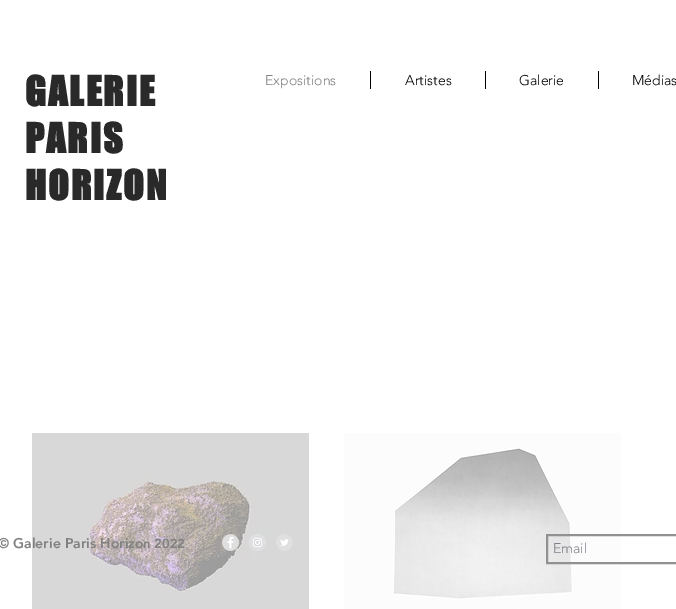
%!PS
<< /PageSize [676 609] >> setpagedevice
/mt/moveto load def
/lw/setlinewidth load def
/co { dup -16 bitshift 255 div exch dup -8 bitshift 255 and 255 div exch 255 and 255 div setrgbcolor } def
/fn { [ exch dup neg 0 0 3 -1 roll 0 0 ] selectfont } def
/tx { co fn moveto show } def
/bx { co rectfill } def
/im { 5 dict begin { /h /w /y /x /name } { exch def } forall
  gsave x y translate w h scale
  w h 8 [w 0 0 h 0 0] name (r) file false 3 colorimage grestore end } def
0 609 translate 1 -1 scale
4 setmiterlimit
0 0 676 609 16#FFFFFF bx
370 71 1 18 16#000000 bx
485 71 1 18 16#000000 bx
598 71 1 18 16#000000 bx
(media/1.raw) 32 433 277 176 im
(media/2.raw) 344 433 277 176 im
(media/3.raw) 222 534 17 17 im
(media/4.raw) 249 534 17 17 im
(media/5.raw) 276 534 17 17 im
16#919191 co
2 lw
547 535 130 28 rectstroke
/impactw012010-Bold 38 fn
16#292929 co
25 106 mt 2 0 (GALERIE) ashow
25 153 mt 2 0 (PARIS) ashow
25 200 mt 2 0 (HORIZON) ashow
(Expositions) 265 85 /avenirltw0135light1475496-Light 14 16#818181 tx
(Artistes) 405 85 /avenirltw0135light1475496-Light 14 16#000000 tx
(Galerie) 519 85 /avenirltw0135light1475496-Light 14 16#000000 tx
(Médias) 632 85 /avenirltw0135light1475496-Light 14 16#000000 tx
(© Galerie Paris Horizo) -2 548 /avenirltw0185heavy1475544-Black 14 16#818181 tx
(n 2022) 143 548 /avenirltw0185heavy1475544-Black 13 16#818181 tx
(Email) 553 553 /avenirltw0135light1475496-Light 14 16#7F808A tx
showpage
